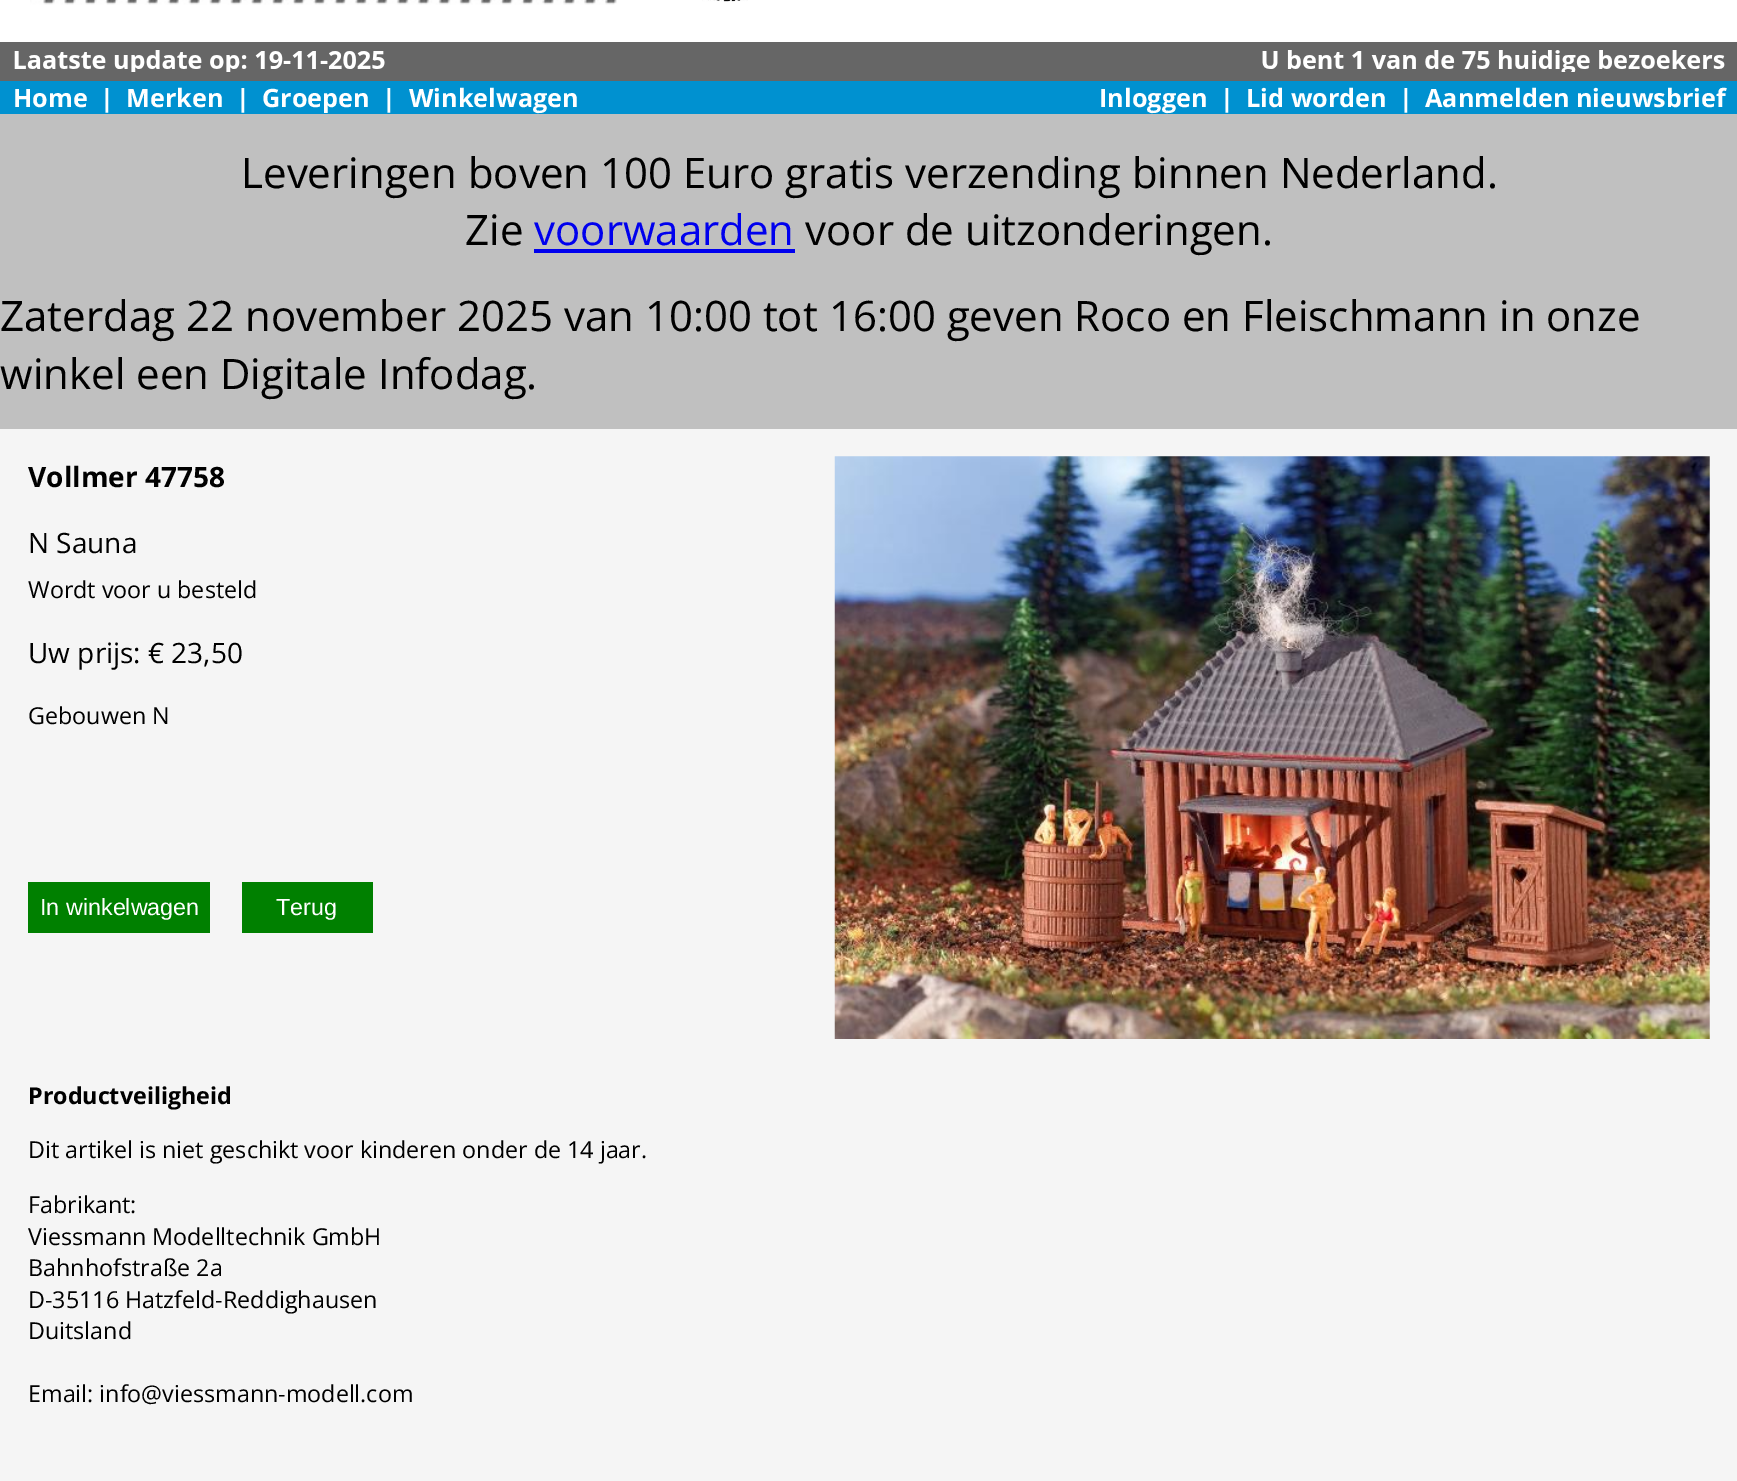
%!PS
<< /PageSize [1737 1481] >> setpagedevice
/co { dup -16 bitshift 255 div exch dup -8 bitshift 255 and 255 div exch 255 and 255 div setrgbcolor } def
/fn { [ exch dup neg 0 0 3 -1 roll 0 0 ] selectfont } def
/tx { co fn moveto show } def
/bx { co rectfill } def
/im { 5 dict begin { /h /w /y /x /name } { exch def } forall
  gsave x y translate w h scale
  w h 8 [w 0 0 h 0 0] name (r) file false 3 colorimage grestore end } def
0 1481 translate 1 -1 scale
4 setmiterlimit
0 0 1737 1481 16#666666 bx
0 0 1737 42 16#FFFFFF bx
(media/1.raw) 30 0 587 5 im
(media/2.raw) 702 0 46 2 im
(media/3.raw) 14 50 1711 22 im
0 81 1737 33 16#0091D0 bx
0 114 1737 315 16#C0C0C0 bx
534 249 261 4 16#0000EE bx
0 429 1737 1052 16#F5F5F5 bx
(media/4.raw) 834 456 876 583 im
28 882 182 51 16#008000 bx
242 882 131 51 16#008000 bx
(Home) 13 107 /OpenSans-Bold 25.25 16#FFFFFF tx
(|) 100 107 /OpenSans-Bold 25.25 16#FFFFFF tx
(Merken) 126 107 /OpenSans-Bold 25.25 16#FFFFFF tx
(|) 236 107 /OpenSans-Bold 25.25 16#FFFFFF tx
(Groepen) 262 107 /OpenSans-Bold 25.25 16#FFFFFF tx
(|) 382 107 /OpenSans-Bold 25.25 16#FFFFFF tx
(Winkelwagen) 409 107 /OpenSans-Bold 25.25 16#FFFFFF tx
(Inloggen) 1099 107 /OpenSans-Bold 25.25 16#FFFFFF tx
(|) 1220 107 /OpenSans-Bold 25.25 16#FFFFFF tx
(Lid worden) 1246 107 /OpenSans-Bold 25.25 16#FFFFFF tx
(|) 1399 107 /OpenSans-Bold 25.25 16#FFFFFF tx
(Aanmelden nieuwsbrief) 1425 107 /OpenSans-Bold 25.25 16#FFFFFF tx
(Leveringen boven 100 Euro gratis verzending binnen Nederland.) 241 188 /OpenSans-Regular 42 16#000000 tx
(Zie) 465 245 /OpenSans-Regular 42 16#000000 tx
(voorwaarden) 534 245 /OpenSans-Regular 42 16#0000EE tx
(voor de uitzonderingen.) 805 245 /OpenSans-Regular 42 16#000000 tx
(Zaterdag 22 november 2025 van 10:00 tot 16:00 geven Roco en Fleischmann in onze) 0 331 /OpenSans-Regular 42 16#000000 tx
(winkel een Digitale Infodag.) 0 389 /OpenSans-Regular 42 16#000000 tx
(Vollmer 47758) 28 487 /OpenSans-Bold 28 16#000000 tx
(N Sauna) 28 553 /OpenSans-Regular 28 16#000000 tx
(Wordt voor u besteld) 28 598 /OpenSans-Regular 23.3 16#000000 tx
(Uw prijs: € 23,50) 28 663 /OpenSans-Regular 28 16#000000 tx
(Gebouwen N) 28 724 /OpenSans-Regular 23.3 16#000000 tx
(In winkelwagen) 40 915 /LiberationSans-Regular 23.3 16#FFFFFF tx
(Terug) 276 915 /LiberationSans-Regular 23.3 16#FFFFFF tx
(Productveiligheid) 28 1104 /OpenSans-Bold 23.25 16#000000 tx
(Dit artikel is niet geschikt voor kinderen onder de 14 jaar.) 28 1158 /OpenSans-Regular 23.3 16#000000 tx
(Fabrikant:) 28 1213 /OpenSans-Regular 23.3 16#000000 tx
(Viessmann Modelltechnik GmbH) 28 1245 /OpenSans-Regular 23.3 16#000000 tx
(Bahnhofstraße 2a) 28 1276 /OpenSans-Regular 23.3 16#000000 tx
(D-35116 Hatzfeld-Reddighausen) 28 1308 /OpenSans-Regular 23.3 16#000000 tx
(Duitsland) 28 1339 /OpenSans-Regular 23.3 16#000000 tx
(Email: info@viessmann-modell.com) 28 1402 /OpenSans-Regular 23.3 16#000000 tx
showpage
